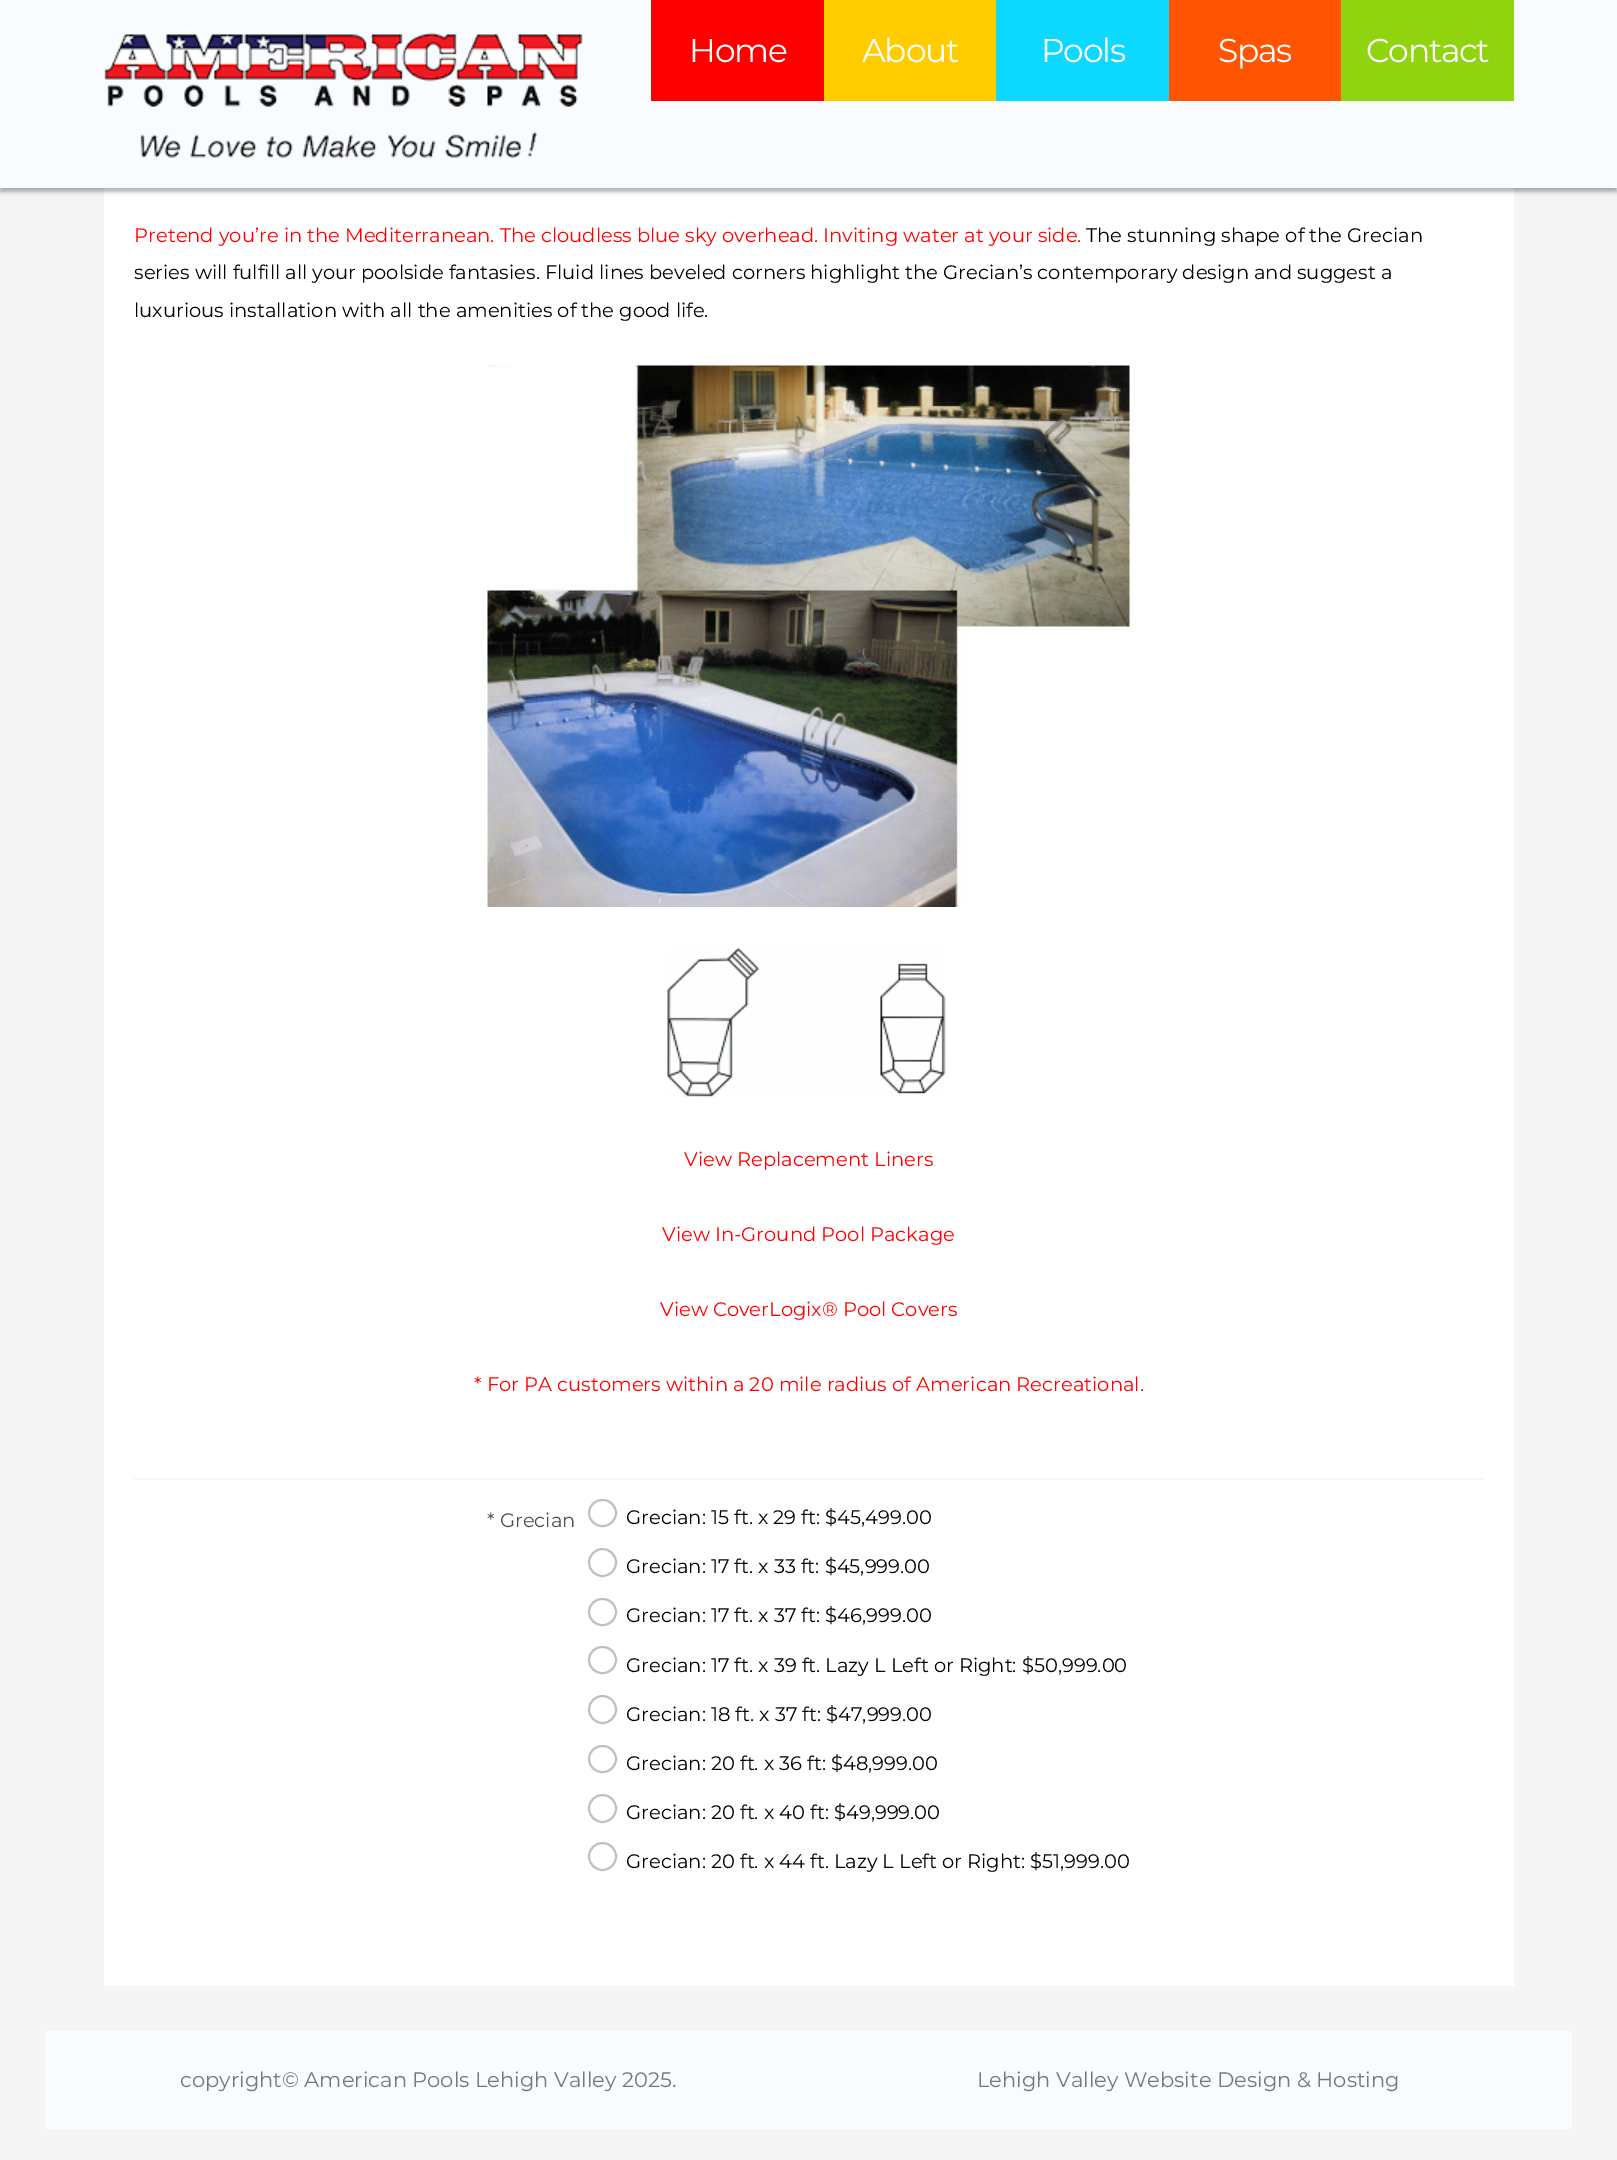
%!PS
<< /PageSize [1617 2160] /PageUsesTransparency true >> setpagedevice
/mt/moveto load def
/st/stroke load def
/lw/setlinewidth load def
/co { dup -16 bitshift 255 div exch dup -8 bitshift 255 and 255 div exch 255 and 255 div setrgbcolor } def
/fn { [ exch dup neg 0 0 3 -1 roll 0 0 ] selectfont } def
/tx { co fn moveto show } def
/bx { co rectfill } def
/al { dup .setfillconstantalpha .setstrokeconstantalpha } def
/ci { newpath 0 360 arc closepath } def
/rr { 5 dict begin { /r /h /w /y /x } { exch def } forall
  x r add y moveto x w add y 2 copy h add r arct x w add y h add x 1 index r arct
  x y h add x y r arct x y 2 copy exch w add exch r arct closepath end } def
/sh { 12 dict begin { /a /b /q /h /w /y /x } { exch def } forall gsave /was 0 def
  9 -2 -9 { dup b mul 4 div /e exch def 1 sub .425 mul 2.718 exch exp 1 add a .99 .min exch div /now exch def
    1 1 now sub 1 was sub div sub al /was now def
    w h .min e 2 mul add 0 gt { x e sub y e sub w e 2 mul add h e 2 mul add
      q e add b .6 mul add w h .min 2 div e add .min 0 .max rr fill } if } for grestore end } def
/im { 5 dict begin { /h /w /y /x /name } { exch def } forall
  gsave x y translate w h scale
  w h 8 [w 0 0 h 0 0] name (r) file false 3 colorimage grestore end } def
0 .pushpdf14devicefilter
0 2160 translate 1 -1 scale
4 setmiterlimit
0 0 1617 2160 16#F5F5F5 bx
104 188 1410 1798 16#FFFFFF bx
16#000000 co
0 5 1617 187 0 2 .3 sh
0 0 1617 188 16#F9FCFF bx
(media/1.raw) 104 32 479 126 im
651 0 173 101 16#FF0000 bx
824 0 172 101 16#FFCC00 bx
996 0 173 101 16#0DD8FD bx
1169 0 172 101 16#FF5502 bx
1341 0 173 101 16#90D30F bx
134 1478 1350 2 16#F7F7F7 bx
(media/2.raw) 487 365 643 542 im
(media/3.raw) 667 947 279 151 im
16#C0C0C0 co
2 lw
589 1500 27 26 13 rr st
602.5 1562.5 13.5 ci st
589 1599 27 26 13 rr st
589 1647 27 26 13 rr st
602.5 1709.5 13.5 ci st
589 1746 27 26 13 rr st
602.5 1808.5 13.5 ci st
602.5 1856.5 13.5 ci st
45 2031 1527 98 16#F9FCFF bx
/Montserrat-Regular 33 fn
16#FFFFFF co
689 62 mt -1.25 0 (Home) ashow
862 62 mt -1.25 0 (About) ashow
1041 62 mt -1.25 0 (Pools) ashow
1218 62 mt -1.25 0 (Spas) ashow
1366 62 mt -1.25 0 (Contact) ashow
(Pretend you’re in the Mediterranean. The cloudless blue sky overhead. Inviting water at your side.) 134 242 /Montserrat-Regular 19.5 16#FF0000 tx
(The stunning shape of the Grecian) 1086 242 /Montserrat-Regular 19.5 16#000000 tx
(series will fulfill all your poolside fantasies. Fluid lines beveled corners highlight the Grecian’s contemporary design and suggest a) 134 279 /Montserrat-Regular 19.5 16#000000 tx
(luxurious installation with all the amenities of the good life.) 134 317 /Montserrat-Regular 19.5 16#000000 tx
(View Replacement Liners) 684 1166 /Montserrat-Regular 19.5 16#FF0000 tx
(View In-Ground Pool Package) 662 1241 /Montserrat-Regular 19.5 16#FF0000 tx
(View CoverLogix® Pool Covers) 660 1316 /Montserrat-Regular 19.5 16#FF0000 tx
(* For PA customers within a 20 mile radius of American Recreational.) 474 1391 /Montserrat-Regular 19.5 16#FF0000 tx
(* Grecian) 487 1527 /Montserrat-Regular 19.5 16#4F4F4F tx
(Grecian: 15 ft. x 29 ft: $45,499.00) 626 1524 /Montserrat-Regular 19.5 16#000000 tx
(Grecian: 17 ft. x 33 ft: $45,999.00) 626 1573 /Montserrat-Regular 19.5 16#000000 tx
(Grecian: 17 ft. x 37 ft: $46,999.00) 626 1622 /Montserrat-Regular 19.5 16#000000 tx
(Grecian: 17 ft. x 39 ft. Lazy L Left or Right: $50,999.00) 626 1672 /Montserrat-Regular 19.5 16#000000 tx
(Grecian: 18 ft. x 37 ft: $47,999.00) 626 1721 /Montserrat-Regular 19.5 16#000000 tx
(Grecian: 20 ft. x 36 ft: $48,999.00) 626 1770 /Montserrat-Regular 19.5 16#000000 tx
(Grecian: 20 ft. x 40 ft: $49,999.00) 626 1819 /Montserrat-Regular 19.5 16#000000 tx
(Grecian: 20 ft. x 44 ft. Lazy L Left or Right: $51,999.00) 626 1868 /Montserrat-Regular 19.5 16#000000 tx
(copyright© American Pools Lehigh Valley 2025.) 180 2087 /Montserrat-Regular 21 16#777777 tx
(Lehigh Valley Website Design & Hosting) 977 2087 /Montserrat-Regular 21 16#777777 tx
.poppdf14devicefilter showpage
